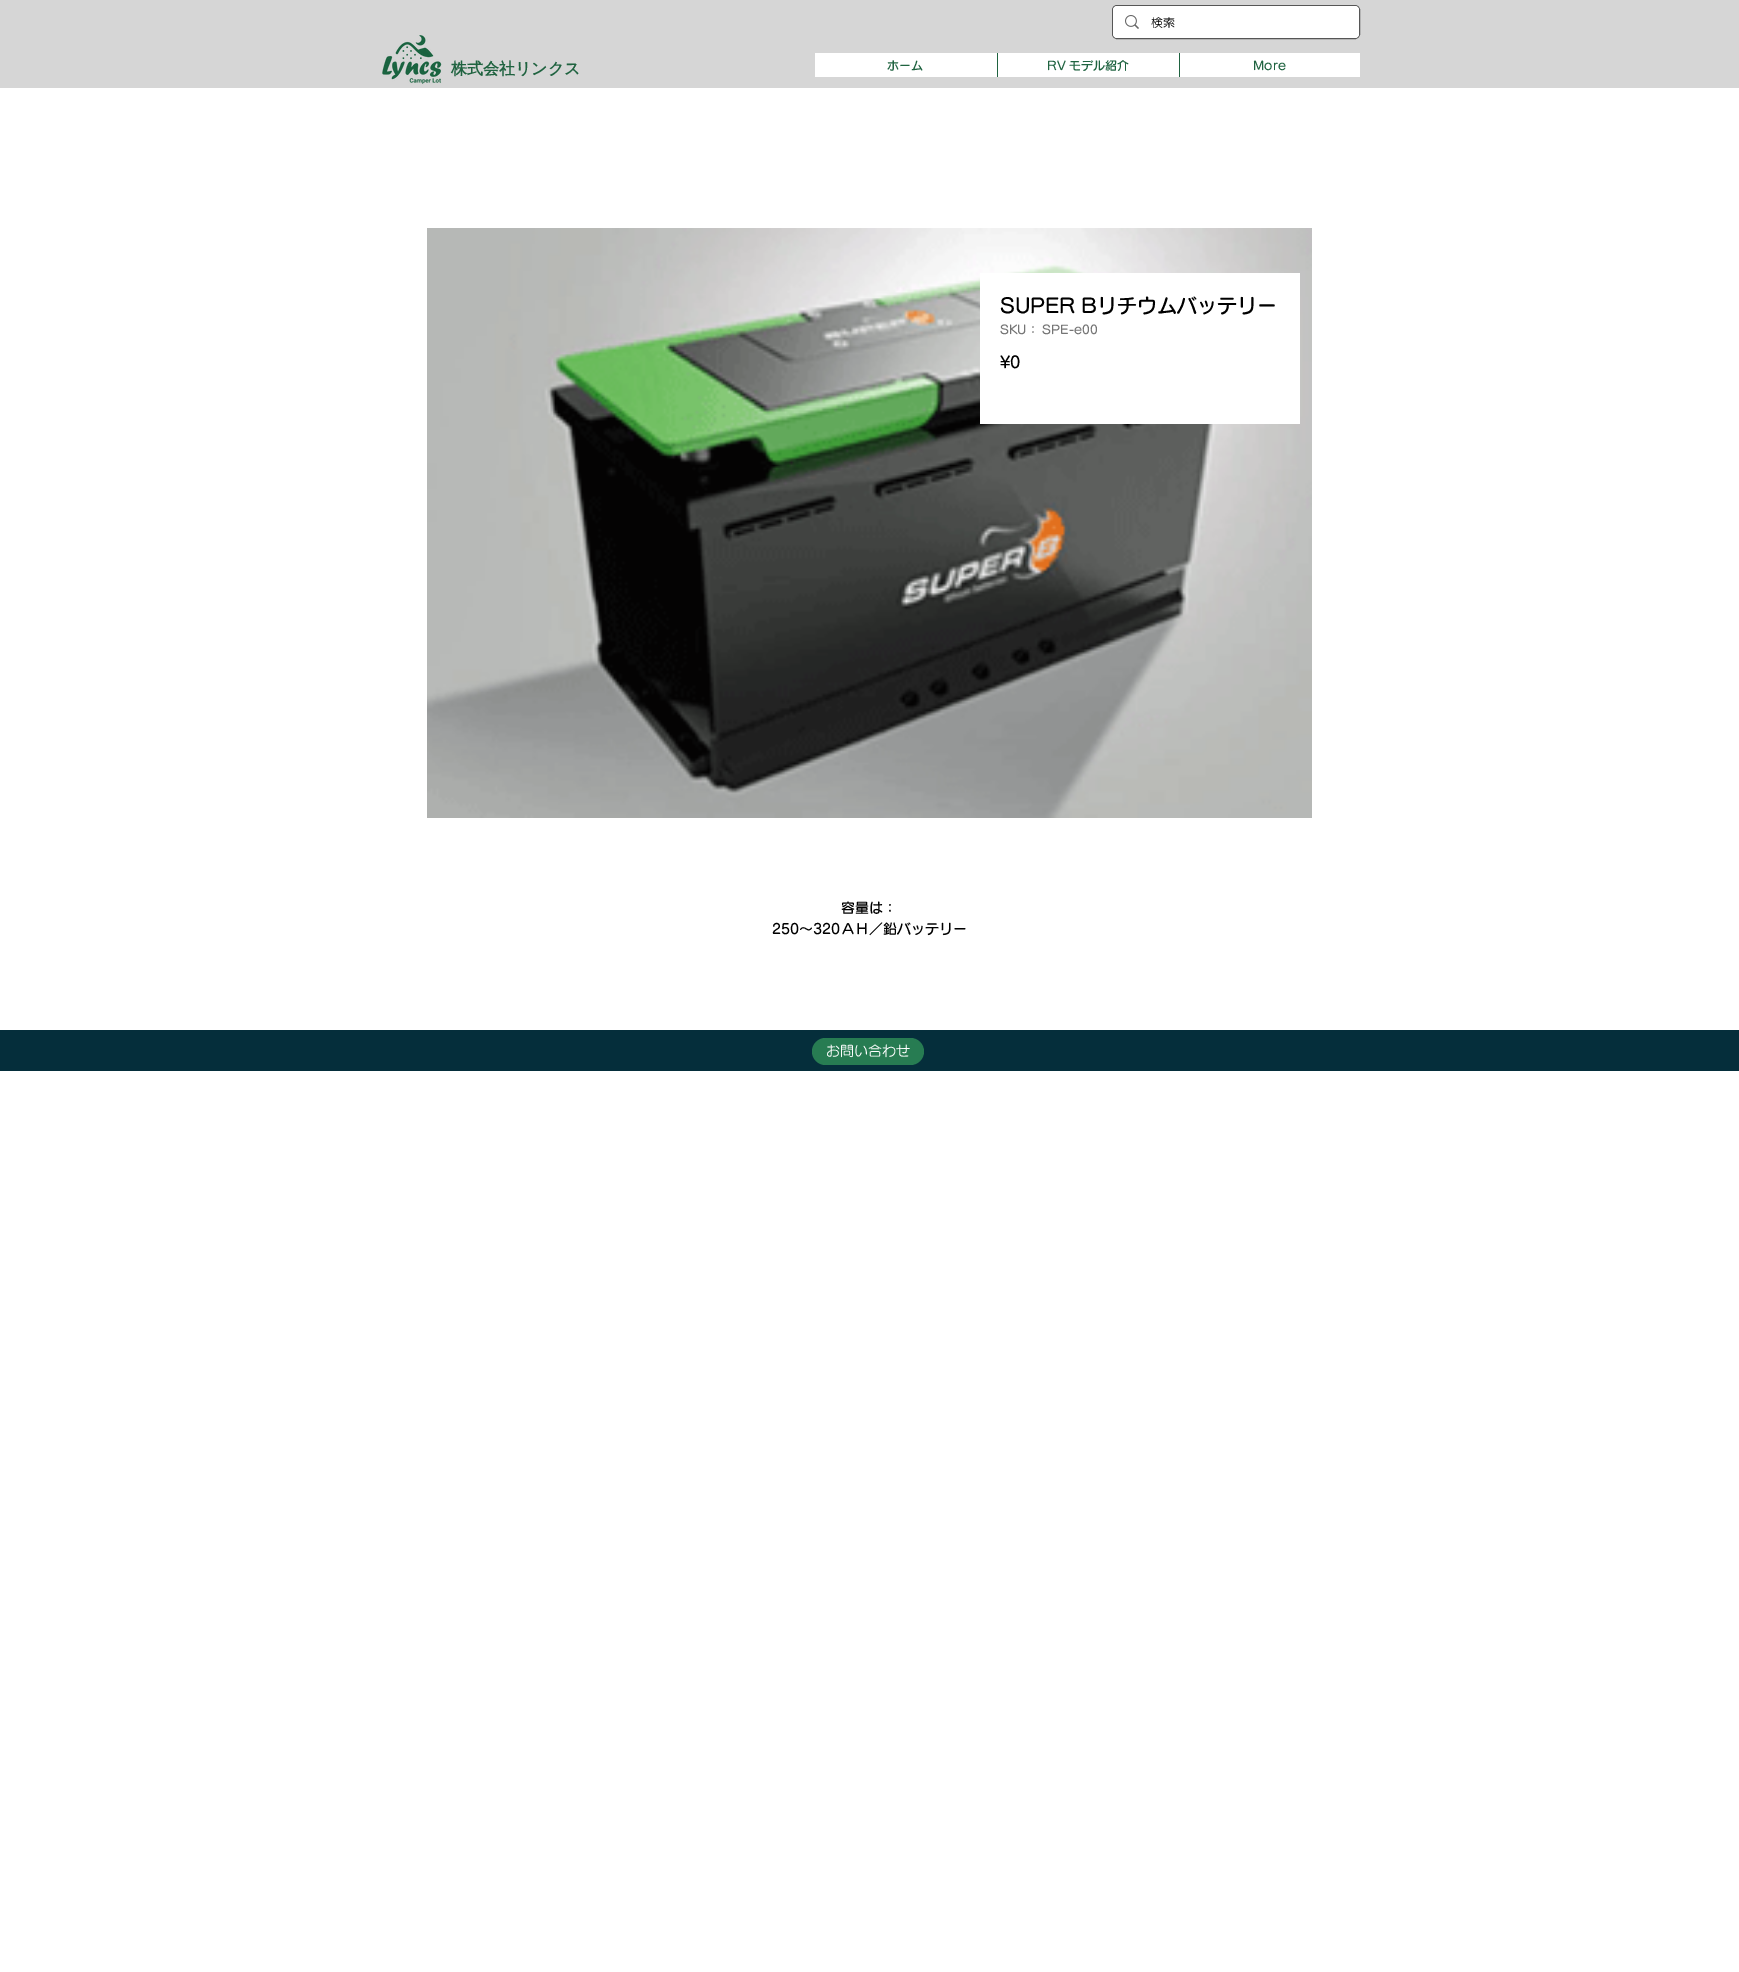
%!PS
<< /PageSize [1739 1972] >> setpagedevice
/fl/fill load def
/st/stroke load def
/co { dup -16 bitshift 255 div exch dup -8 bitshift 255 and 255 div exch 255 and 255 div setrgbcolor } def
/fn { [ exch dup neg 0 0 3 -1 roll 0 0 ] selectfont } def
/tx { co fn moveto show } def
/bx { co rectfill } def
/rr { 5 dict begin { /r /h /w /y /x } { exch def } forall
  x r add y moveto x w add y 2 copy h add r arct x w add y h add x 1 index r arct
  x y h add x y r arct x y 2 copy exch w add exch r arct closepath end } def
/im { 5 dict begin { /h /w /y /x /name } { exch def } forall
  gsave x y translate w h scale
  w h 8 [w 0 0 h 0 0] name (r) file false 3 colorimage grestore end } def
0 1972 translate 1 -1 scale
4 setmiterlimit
0 0 1739 1972 16#FFFFFF bx
0 0 1739 88 16#D6D6D6 bx
16#565656 co
1112.5 5.5 247 33 4.5 rr st
16#FFFFFF co
1113 6 246 32 4 rr fl
(media/1.raw) 1125 15 14 14 im
(media/2.raw) 382 35 60 49 im
815 53 545 24 16#FFFFFF bx
997 53 1 24 16#1F6340 bx
1179 53 1 24 16#1F6340 bx
(media/3.raw) 427 228 885 590 im
980 273 320 151 16#FFFFFF bx
0 1030 1739 41 16#052E3B bx
16#277C52 co
812 1038 112 27 13.5 rr fl
(検索) 1151 27 /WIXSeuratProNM-Medium 12 16#000000 tx
(株式会社リンクス) 451 74 /WenQuanYiZenHei-Bold 16 16#1F6340 tx
(ホーム) 887 70 /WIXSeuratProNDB-SemiBold 12 16#1F6340 tx
(RV モデル紹介) 1047 70 /WIXSeuratProNDB-SemiBold 12 16#1F6340 tx
(More) 1253 70 /WIXSeuratProNDB-SemiBold 12 16#1F6340 tx
(SUPER Bリチウムバッテリー) 1000 313 /WIXSeuratProNDB-SemiBold 20 16#000000 tx
(SKU： SPE-e00) 1000 334 /WIXSeuratProNDB-SemiBold 12 16#757575 tx
(¥0) 1000 368 /WIXSeuratProNDB-SemiBold 16 16#000000 tx
(容量は：) 841 913 /WIXSeuratProNDB-SemiBold 14 16#000000 tx
(250～320ＡＨ／鉛バッテリー) 772 934 /WIXSeuratProNDB-SemiBold 14 16#000000 tx
(お問い合わせ) 826 1056 /WIXSeuratProNM-Medium 14 16#FFFFFF tx
showpage
